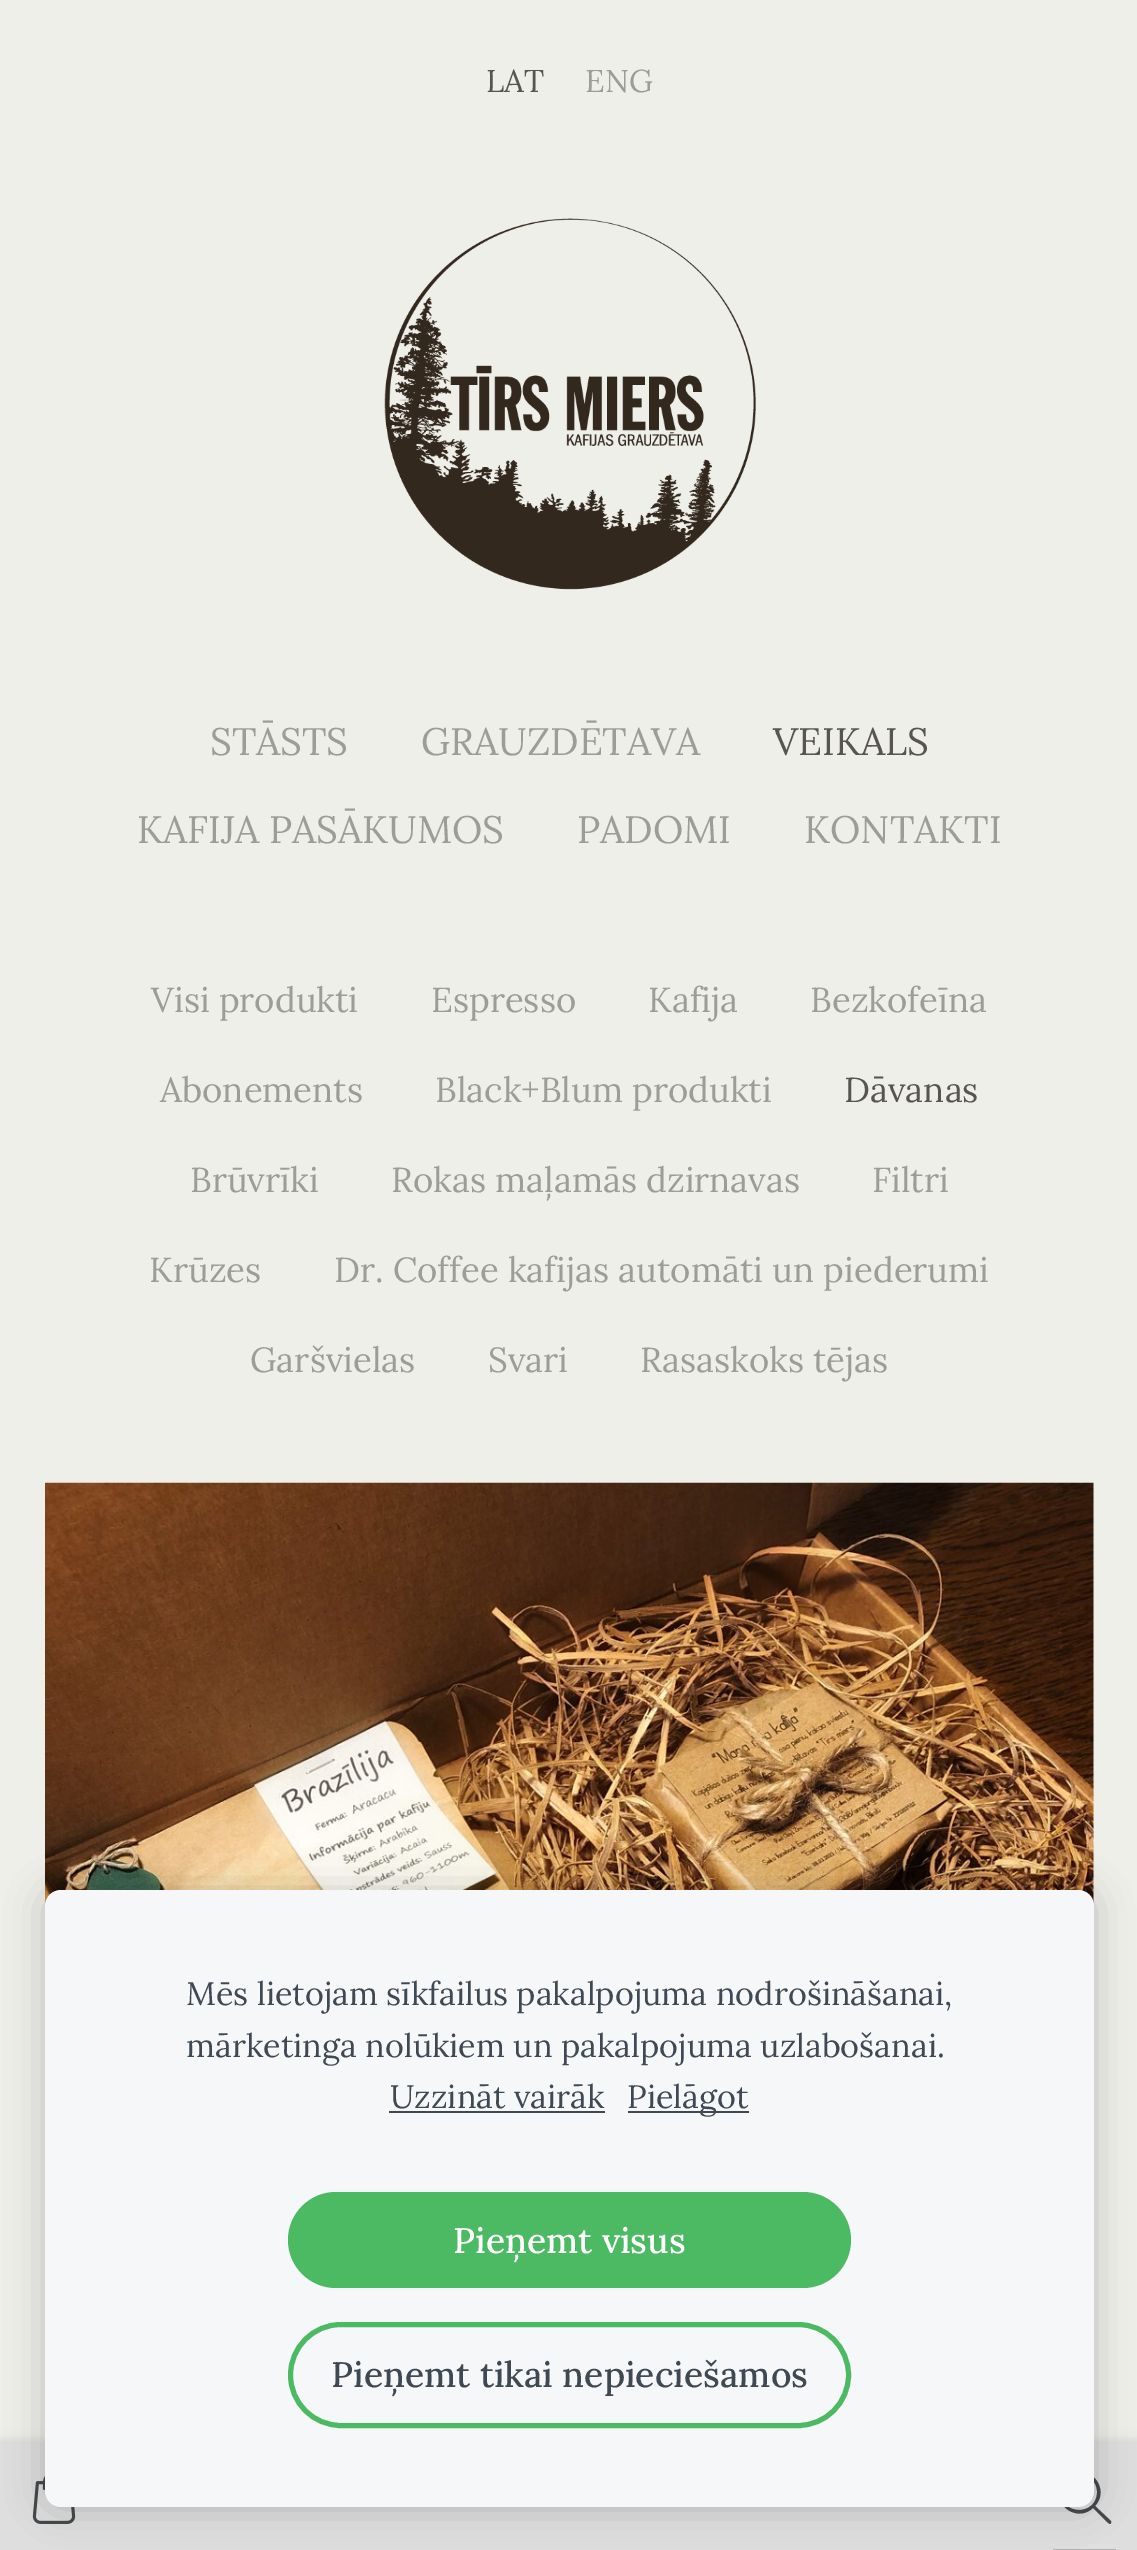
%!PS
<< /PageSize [1137 2550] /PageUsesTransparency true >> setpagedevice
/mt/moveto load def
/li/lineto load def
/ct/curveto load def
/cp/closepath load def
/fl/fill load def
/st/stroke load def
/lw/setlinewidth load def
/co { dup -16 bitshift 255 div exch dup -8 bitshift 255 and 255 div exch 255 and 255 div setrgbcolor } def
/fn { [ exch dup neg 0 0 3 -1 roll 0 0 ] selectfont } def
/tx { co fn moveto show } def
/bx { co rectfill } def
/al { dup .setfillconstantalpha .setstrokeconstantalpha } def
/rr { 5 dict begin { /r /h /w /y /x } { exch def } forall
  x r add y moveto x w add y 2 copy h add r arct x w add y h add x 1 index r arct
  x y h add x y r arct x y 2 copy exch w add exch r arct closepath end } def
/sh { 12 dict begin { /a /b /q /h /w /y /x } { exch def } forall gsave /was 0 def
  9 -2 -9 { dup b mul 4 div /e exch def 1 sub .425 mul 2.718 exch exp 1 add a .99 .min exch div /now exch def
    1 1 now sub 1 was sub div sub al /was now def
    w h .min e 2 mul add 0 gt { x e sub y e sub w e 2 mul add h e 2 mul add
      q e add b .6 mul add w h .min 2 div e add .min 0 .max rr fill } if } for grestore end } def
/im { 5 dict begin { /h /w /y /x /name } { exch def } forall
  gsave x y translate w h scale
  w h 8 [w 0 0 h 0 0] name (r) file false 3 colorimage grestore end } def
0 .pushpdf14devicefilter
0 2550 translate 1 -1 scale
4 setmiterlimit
0 0 1137 2550 16#EEEFE9 bx
(media/1.raw) 384 218 372 372 im
(media/2.raw) 45 1482 1049 424 im
16#000000 co
-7 2441 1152 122 0 5.5 .1 sh
0 2444 1137 106 16#DEDEDE bx
(media/3.raw) 32 2476 44 48 im
16#454A4C co
1111 2521 mt 1095 2506 li 1113 2486 1083 2458 1064 2477 ct 1045 2496 1073 2526 1093 2508 ct 1106 2521 li 1112 2527 1111 2522 1111 2521 ct cp 1061 2492 mt 1061 2469 1097 2469 1097 2492 ct 1097 2516 1061 2516 1061 2492 ct cp fl
1053 2549 63 1 16#B0B2B2 bx
16#000000 co
45 1890 1049 617 16 19 .2 sh
16#F6F7F9 co
45 1890 1049 617 16 rr fl
389 2111 216 2 16#3F4954 bx
628 2111 121 2 16#3F4954 bx
16#4CB963 co
288 2192 563 96 48 rr fl
5 lw
290.5 2324.5 558 101 50.5 rr st
(LAT) 486 92 /Lora-Regular 31.5 16#575451 tx
(ENG) 585 92 /Lora-Regular 31.5 16#9D9C98 tx
(STĀSTS) 210 755 /Lora-Regular 38.25 16#9D9C98 tx
(GRAUZDĒTAVA) 421 755 /Lora-Regular 38.25 16#9D9C98 tx
(VEIKALS) 773 755 /Lora-Regular 38.25 16#575451 tx
(KAFIJA PASĀKUMOS) 137 843 /Lora-Regular 38.25 16#9D9C98 tx
(PADOMI) 577 843 /Lora-Regular 38.25 16#9D9C98 tx
(KONTAKTI) 804 843 /Lora-Regular 38.25 16#9D9C98 tx
(Visi produkti) 151 1012 /Lora-Regular 34.8 16#9D9C98 tx
(Espresso) 431 1012 /Lora-Regular 34.8 16#9D9C98 tx
(Kafija) 648 1012 /Lora-Regular 34.8 16#9D9C98 tx
(Bezkofeīna) 810 1012 /Lora-Regular 34.8 16#9D9C98 tx
(Abonements) 160 1102 /Lora-Regular 34.8 16#9D9C98 tx
(Black+Blum produkti) 435 1102 /Lora-Regular 34.8 16#9D9C98 tx
(Dāvanas) 844 1102 /Lora-Regular 34.8 16#575451 tx
(Brūvrīki) 190 1192 /Lora-Regular 34.8 16#9D9C98 tx
(Rokas maļamās dzirnavas) 391 1192 /Lora-Regular 34.8 16#9D9C98 tx
(Filtri) 872 1192 /Lora-Regular 34.8 16#9D9C98 tx
(Krūzes) 149 1282 /Lora-Regular 34.8 16#9D9C98 tx
(Dr. Coffee kafijas automāti un piederumi) 334 1282 /Lora-Regular 34.8 16#9D9C98 tx
(Garšvielas) 250 1372 /Lora-Regular 34.8 16#9D9C98 tx
(Svari) 488 1372 /Lora-Regular 34.8 16#9D9C98 tx
(Rasaskoks tējas) 640 1372 /Lora-Regular 34.8 16#9D9C98 tx
(Mēs lietojam sīkfailus pakalpojuma nodrošināšanai,) 186 2005 /Lora-Regular 32.4 16#3F4954 tx
(mārketinga nolūkiem un pakalpojuma uzlabošanai.) 186 2057 /Lora-Regular 32.4 16#3F4954 tx
(Uzzināt vairāk) 390 2108 /Lora-Regular 32.4 16#3F4954 tx
(Pielāgot) 627 2108 /Lora-Regular 32.4 16#3F4954 tx
(Pieņemt visus) 453 2253 /Lora-Medium 35.6 16#FFFFFF tx
(Pieņemt tikai nepieciešamos) 331 2387 /Lora-Medium 35.6 16#3F4954 tx
.poppdf14devicefilter showpage
